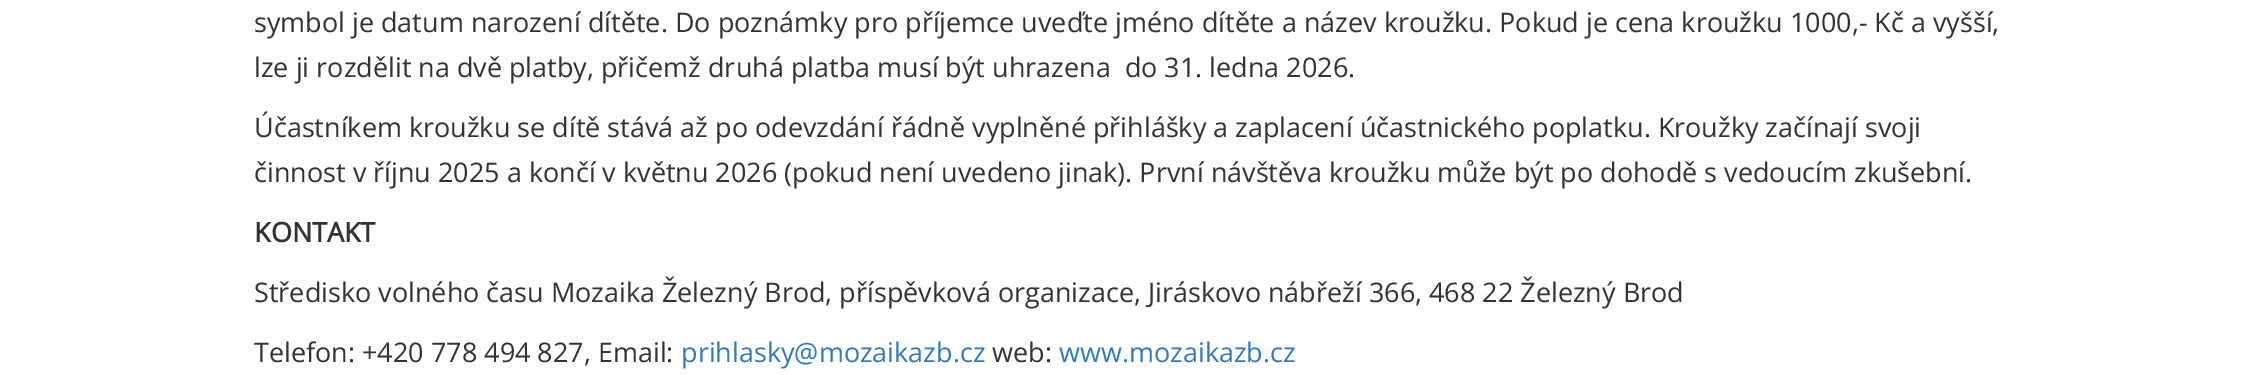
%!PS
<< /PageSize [2263 375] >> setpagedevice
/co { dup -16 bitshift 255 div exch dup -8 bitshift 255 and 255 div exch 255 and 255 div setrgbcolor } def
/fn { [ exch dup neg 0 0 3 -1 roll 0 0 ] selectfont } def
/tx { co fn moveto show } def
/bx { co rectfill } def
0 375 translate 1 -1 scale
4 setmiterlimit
0 0 2263 375 16#FFFFFF bx
(symbol je datum narození dítěte. Do poznámky pro příjemce uveďte jméno dítěte a název kroužku. Pokud je cena kroužku 1000,- Kč a vyšší,) 254 32 /OpenSans-Regular 27 16#333333 tx
(lze ji rozdělit na dvě platby, přičemž druhá platba musí být uhrazena  do 31. ledna 2026.) 254 77 /OpenSans-Regular 27 16#333333 tx
(Účastníkem kroužku se dítě stává až po odevzdání řádně vyplněné přihlášky a zaplacení účastnického poplatku. Kroužky začínají svoji) 254 137 /OpenSans-Regular 27 16#333333 tx
(činnost v říjnu 2025 a končí v květnu 2026 \(pokud není uvedeno jinak\). První návštěva kroužku může být po dohodě s vedoucím zkušební.) 254 182 /OpenSans-Regular 27 16#333333 tx
(KONTAKT) 254 242 /OpenSans-Bold 27 16#333333 tx
(Středisko volného času Mozaika Železný Brod, příspěvková organizace, Jiráskovo nábřeží 366, 468 22 Železný Brod) 254 302 /OpenSans-Regular 27 16#333333 tx
(Telefon: +420 778 494 827, Email:) 254 362 /OpenSans-Regular 27 16#333333 tx
(prihlasky@mozaikazb.cz) 681 362 /OpenSans-Regular 27 16#337AB7 tx
(web:) 992 362 /OpenSans-Regular 27 16#333333 tx
(www.mozaikazb.cz) 1059 362 /OpenSans-Regular 27 16#337AB7 tx
showpage
